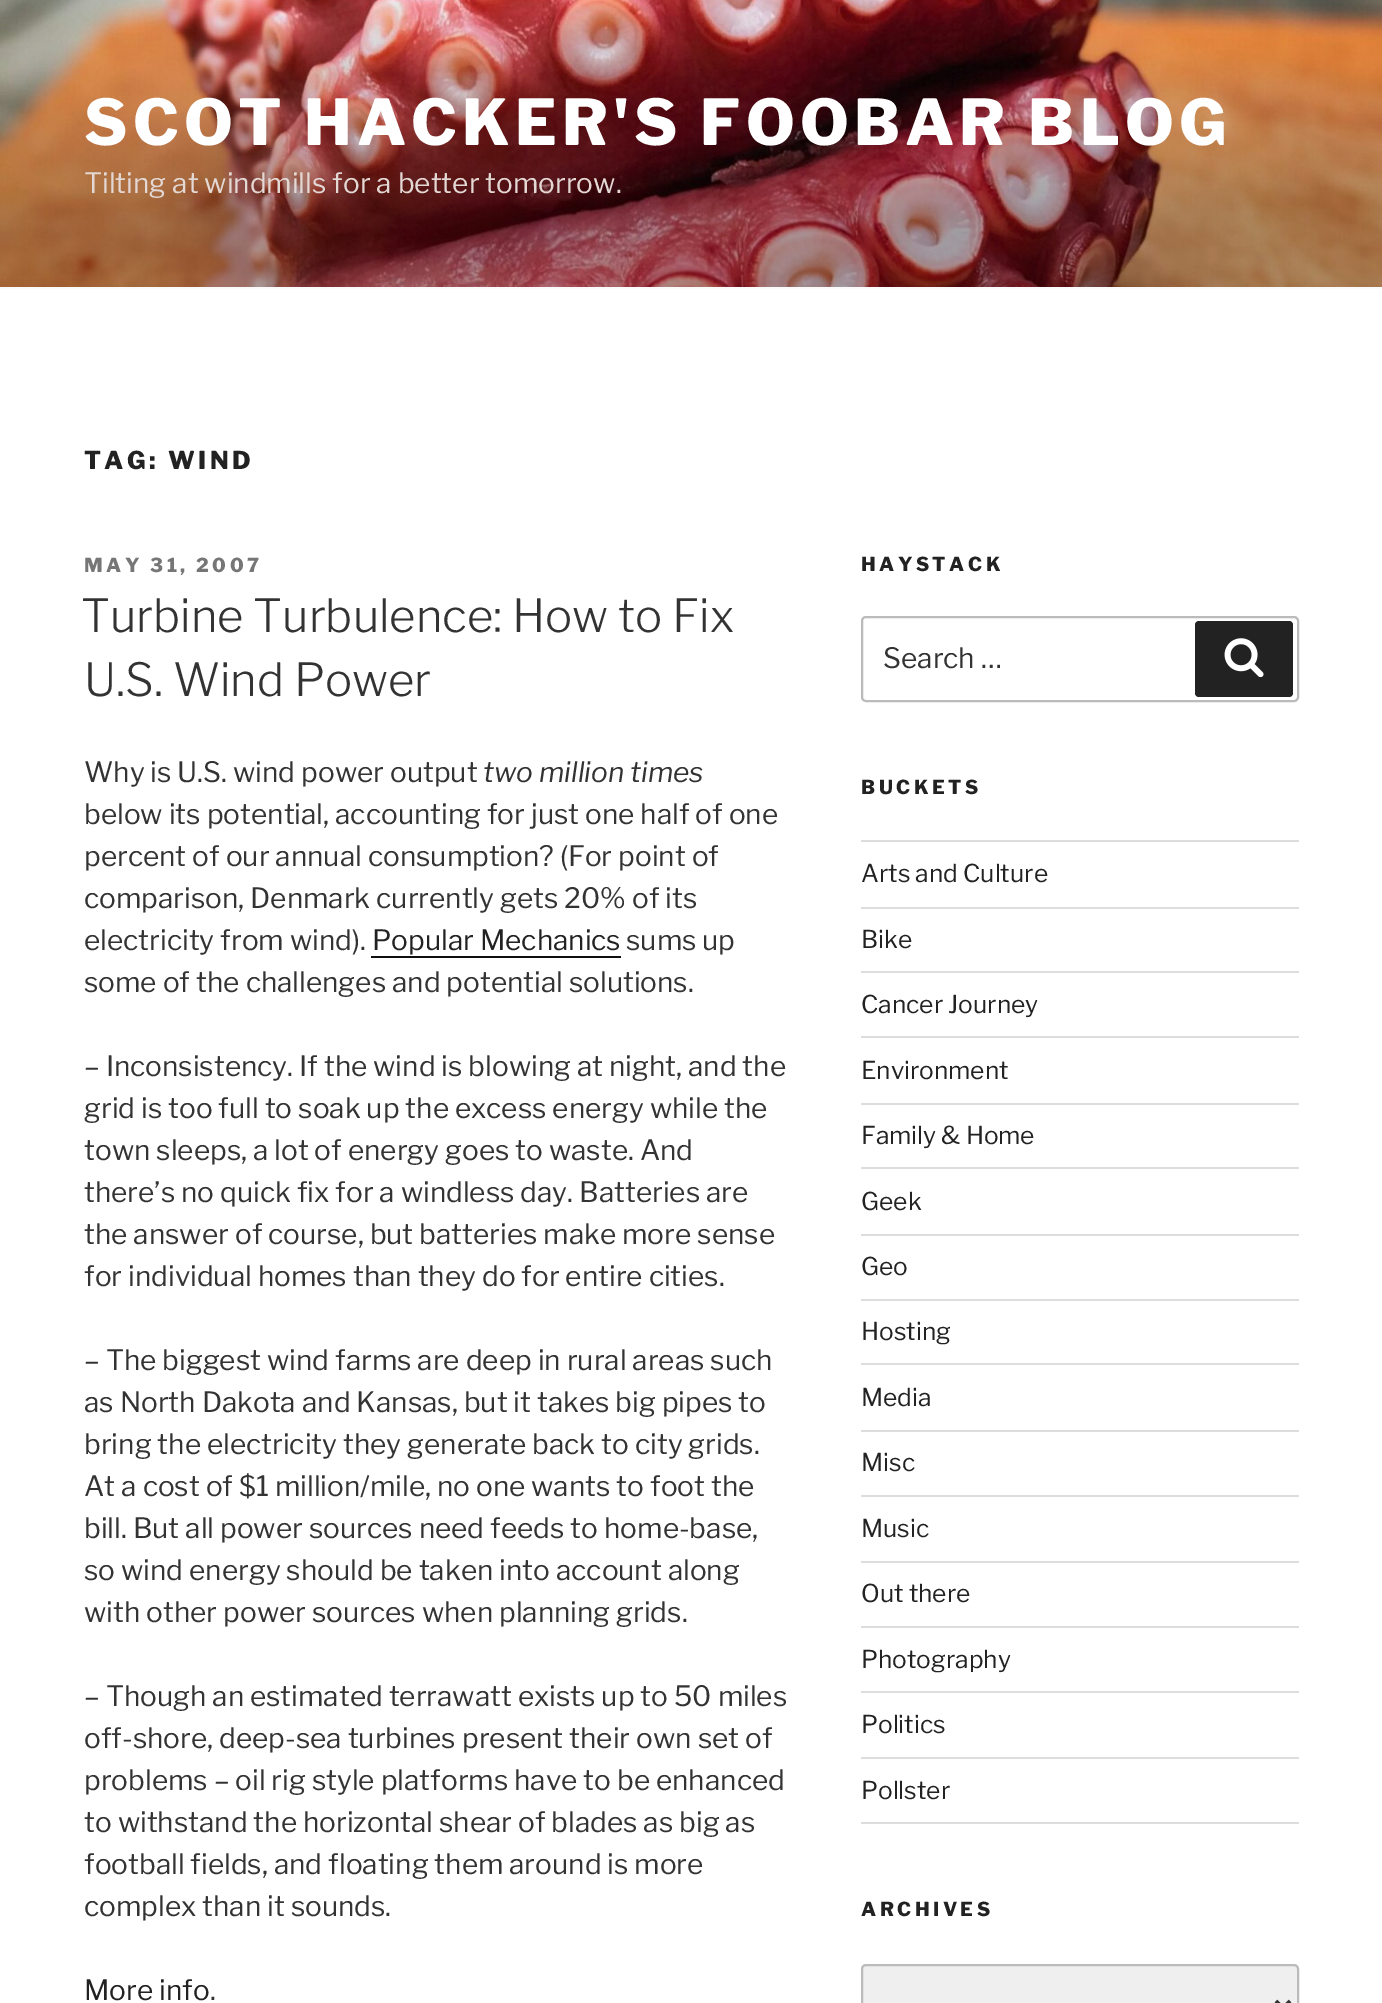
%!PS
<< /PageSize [1382 2003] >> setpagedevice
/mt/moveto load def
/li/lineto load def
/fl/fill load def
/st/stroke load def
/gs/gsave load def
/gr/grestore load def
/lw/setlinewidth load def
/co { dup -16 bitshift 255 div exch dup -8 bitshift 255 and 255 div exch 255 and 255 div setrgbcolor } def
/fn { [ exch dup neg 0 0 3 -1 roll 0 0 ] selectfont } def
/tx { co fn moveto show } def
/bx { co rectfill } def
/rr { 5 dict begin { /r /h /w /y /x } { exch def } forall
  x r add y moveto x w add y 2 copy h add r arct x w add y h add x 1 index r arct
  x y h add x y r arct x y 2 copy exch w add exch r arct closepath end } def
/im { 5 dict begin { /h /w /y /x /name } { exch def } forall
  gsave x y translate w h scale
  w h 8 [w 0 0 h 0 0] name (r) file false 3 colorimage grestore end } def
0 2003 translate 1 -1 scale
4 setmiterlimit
0 0 1382 2003 16#FFFFFF bx
0 287 1382 2 16#FAFAFA bx
(media/1.raw) 0 0 1382 287 im
371 956 250 2 16#0F0F0F bx
16#BBBBBB co
2 lw
862 617 436 84 4 rr st
16#222222 co
1195 621 98 76 4 rr fl
(media/2.raw) 1224 638 40 39 im
861 840 438 2 16#DDDDDD bx
861 907 438 2 16#DDDDDD bx
861 971 438 2 16#DDDDDD bx
861 1036 438 2 16#DDDDDD bx
861 1103 438 2 16#DDDDDD bx
861 1167 438 2 16#DDDDDD bx
861 1234 438 2 16#DDDDDD bx
861 1299 438 2 16#DDDDDD bx
861 1363 438 2 16#DDDDDD bx
861 1430 438 2 16#DDDDDD bx
861 1495 438 2 16#DDDDDD bx
861 1561 438 2 16#DDDDDD bx
861 1626 438 2 16#DDDDDD bx
861 1691 438 2 16#DDDDDD bx
861 1757 438 2 16#DDDDDD bx
861 1822 438 2 16#DDDDDD bx
16#EFEFEF co
862 1965 436 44 4 rr gs fl gr
16#BBBBBB co
st
16#333333 co
3.5 lw
1276 2001 mt 1283 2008 li 1290 2001 li st
/LibreFranklin-Thin 63 fn
16#FFFFFF co
84 145 mt 5.05 0 (SCOT HACKER'S FOOBAR BLOG) ashow
(Tilting at windmills for a better tomorrow.) 84 193 /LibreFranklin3-Thin 28 16#E4D8D5 tx
/LibreFranklin-Thin 24.5 fn
16#222222 co
84 469 mt 3.5 0 (TAG: WIND) ashow
/LibreFranklin-Thin 19.25 fn
16#767676 co
84 572 mt 3.5 0 (MAY 31, 2007) ashow
(Turbine Turbulence: How to Fix) 81 632 /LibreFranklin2-Thin 45.5 16#333333 tx
(U.S. Wind Power) 84 696 /LibreFranklin2-Thin 45.5 16#333333 tx
(Why is U.S. wind power output) 84 782 /LibreFranklin3-Thin 28 16#333333 tx
(two million times) 483 782 /LibreFranklin-ThinItalic 28 16#333333 tx
(below its potential, accounting for just one half of one) 84 824 /LibreFranklin3-Thin 28 16#333333 tx
(percent of our annual consumption? \(For point of) 84 866 /LibreFranklin3-Thin 28 16#333333 tx
(comparison, Denmark currently gets 20% of its) 84 908 /LibreFranklin3-Thin 28 16#333333 tx
(electricity from wind\).) 84 950 /LibreFranklin3-Thin 28 16#333333 tx
(Popular Mechanics) 372 950 /LibreFranklin3-Thin 28 16#222222 tx
(sums up) 626 950 /LibreFranklin3-Thin 28 16#333333 tx
(some of the challenges and potential solutions.) 84 992 /LibreFranklin3-Thin 28 16#333333 tx
(– Inconsistency. If the wind is blowing at night, and the) 84 1076 /LibreFranklin3-Thin 28 16#333333 tx
(grid is too full to soak up the excess energy while the) 84 1118 /LibreFranklin3-Thin 28 16#333333 tx
(town sleeps, a lot of energy goes to waste. And) 84 1160 /LibreFranklin3-Thin 28 16#333333 tx
(there’s no quick fix for a windless day. Batteries are) 84 1202 /LibreFranklin3-Thin 28 16#333333 tx
(the answer of course, but batteries make more sense) 84 1244 /LibreFranklin3-Thin 28 16#333333 tx
(for individual homes than they do for entire cities.) 84 1286 /LibreFranklin3-Thin 28 16#333333 tx
(– The biggest wind farms are deep in rural areas such) 84 1370 /LibreFranklin3-Thin 28 16#333333 tx
(as North Dakota and Kansas, but it takes big pipes to) 84 1412 /LibreFranklin3-Thin 28 16#333333 tx
(bring the electricity they generate back to city grids.) 84 1454 /LibreFranklin3-Thin 28 16#333333 tx
(At a cost of $1 million/mile, no one wants to foot the) 84 1496 /LibreFranklin3-Thin 28 16#333333 tx
(bill. But all power sources need feeds to home-base,) 84 1538 /LibreFranklin3-Thin 28 16#333333 tx
(so wind energy should be taken into account along) 84 1580 /LibreFranklin3-Thin 28 16#333333 tx
(with other power sources when planning grids.) 84 1622 /LibreFranklin3-Thin 28 16#333333 tx
(– Though an estimated terrawatt exists up to 50 miles) 84 1706 /LibreFranklin3-Thin 28 16#333333 tx
(off-shore, deep-sea turbines present their own set of) 84 1748 /LibreFranklin3-Thin 28 16#333333 tx
(problems – oil rig style platforms have to be enhanced) 84 1790 /LibreFranklin3-Thin 28 16#333333 tx
(to withstand the horizontal shear of blades as big as) 84 1832 /LibreFranklin3-Thin 28 16#333333 tx
(football fields, and floating them around is more) 84 1874 /LibreFranklin3-Thin 28 16#333333 tx
(complex than it sounds.) 84 1916 /LibreFranklin3-Thin 28 16#333333 tx
(More info) 84 2000 /LibreFranklin3-Thin 28 16#222222 tx
(.) 210 2000 /LibreFranklin3-Thin 28 16#333333 tx
/LibreFranklin-Thin 19.25 fn
16#222222 co
861 571 mt 3.5 0 (HAYSTACK) ashow
(Search …) 883 668 /LibreFranklin3-Thin 28 16#333333 tx
/LibreFranklin-Thin 19.25 fn
16#222222 co
861 794 mt 3.5 0 (BUCKETS) ashow
(Arts and Culture) 861 882 /LibreFranklin3-Thin 24.5 16#222222 tx
(Bike) 861 948 /LibreFranklin3-Thin 24.5 16#222222 tx
(Cancer Journey) 861 1013 /LibreFranklin3-Thin 24.5 16#222222 tx
(Environment) 861 1079 /LibreFranklin3-Thin 24.5 16#222222 tx
(Family & Home) 861 1144 /LibreFranklin3-Thin 24.5 16#222222 tx
(Geek) 861 1210 /LibreFranklin3-Thin 24.5 16#222222 tx
(Geo) 861 1275 /LibreFranklin3-Thin 24.5 16#222222 tx
(Hosting) 861 1340 /LibreFranklin3-Thin 24.5 16#222222 tx
(Media) 861 1406 /LibreFranklin3-Thin 24.5 16#222222 tx
(Misc) 861 1471 /LibreFranklin3-Thin 24.5 16#222222 tx
(Music) 861 1537 /LibreFranklin3-Thin 24.5 16#222222 tx
(Out there) 861 1602 /LibreFranklin3-Thin 24.5 16#222222 tx
(Photography) 861 1668 /LibreFranklin3-Thin 24.5 16#222222 tx
(Politics) 861 1733 /LibreFranklin3-Thin 24.5 16#222222 tx
(Pollster) 861 1799 /LibreFranklin3-Thin 24.5 16#222222 tx
/LibreFranklin-Thin 19.25 fn
861 1916 mt 3.5 0 (ARCHIVES) ashow
showpage
